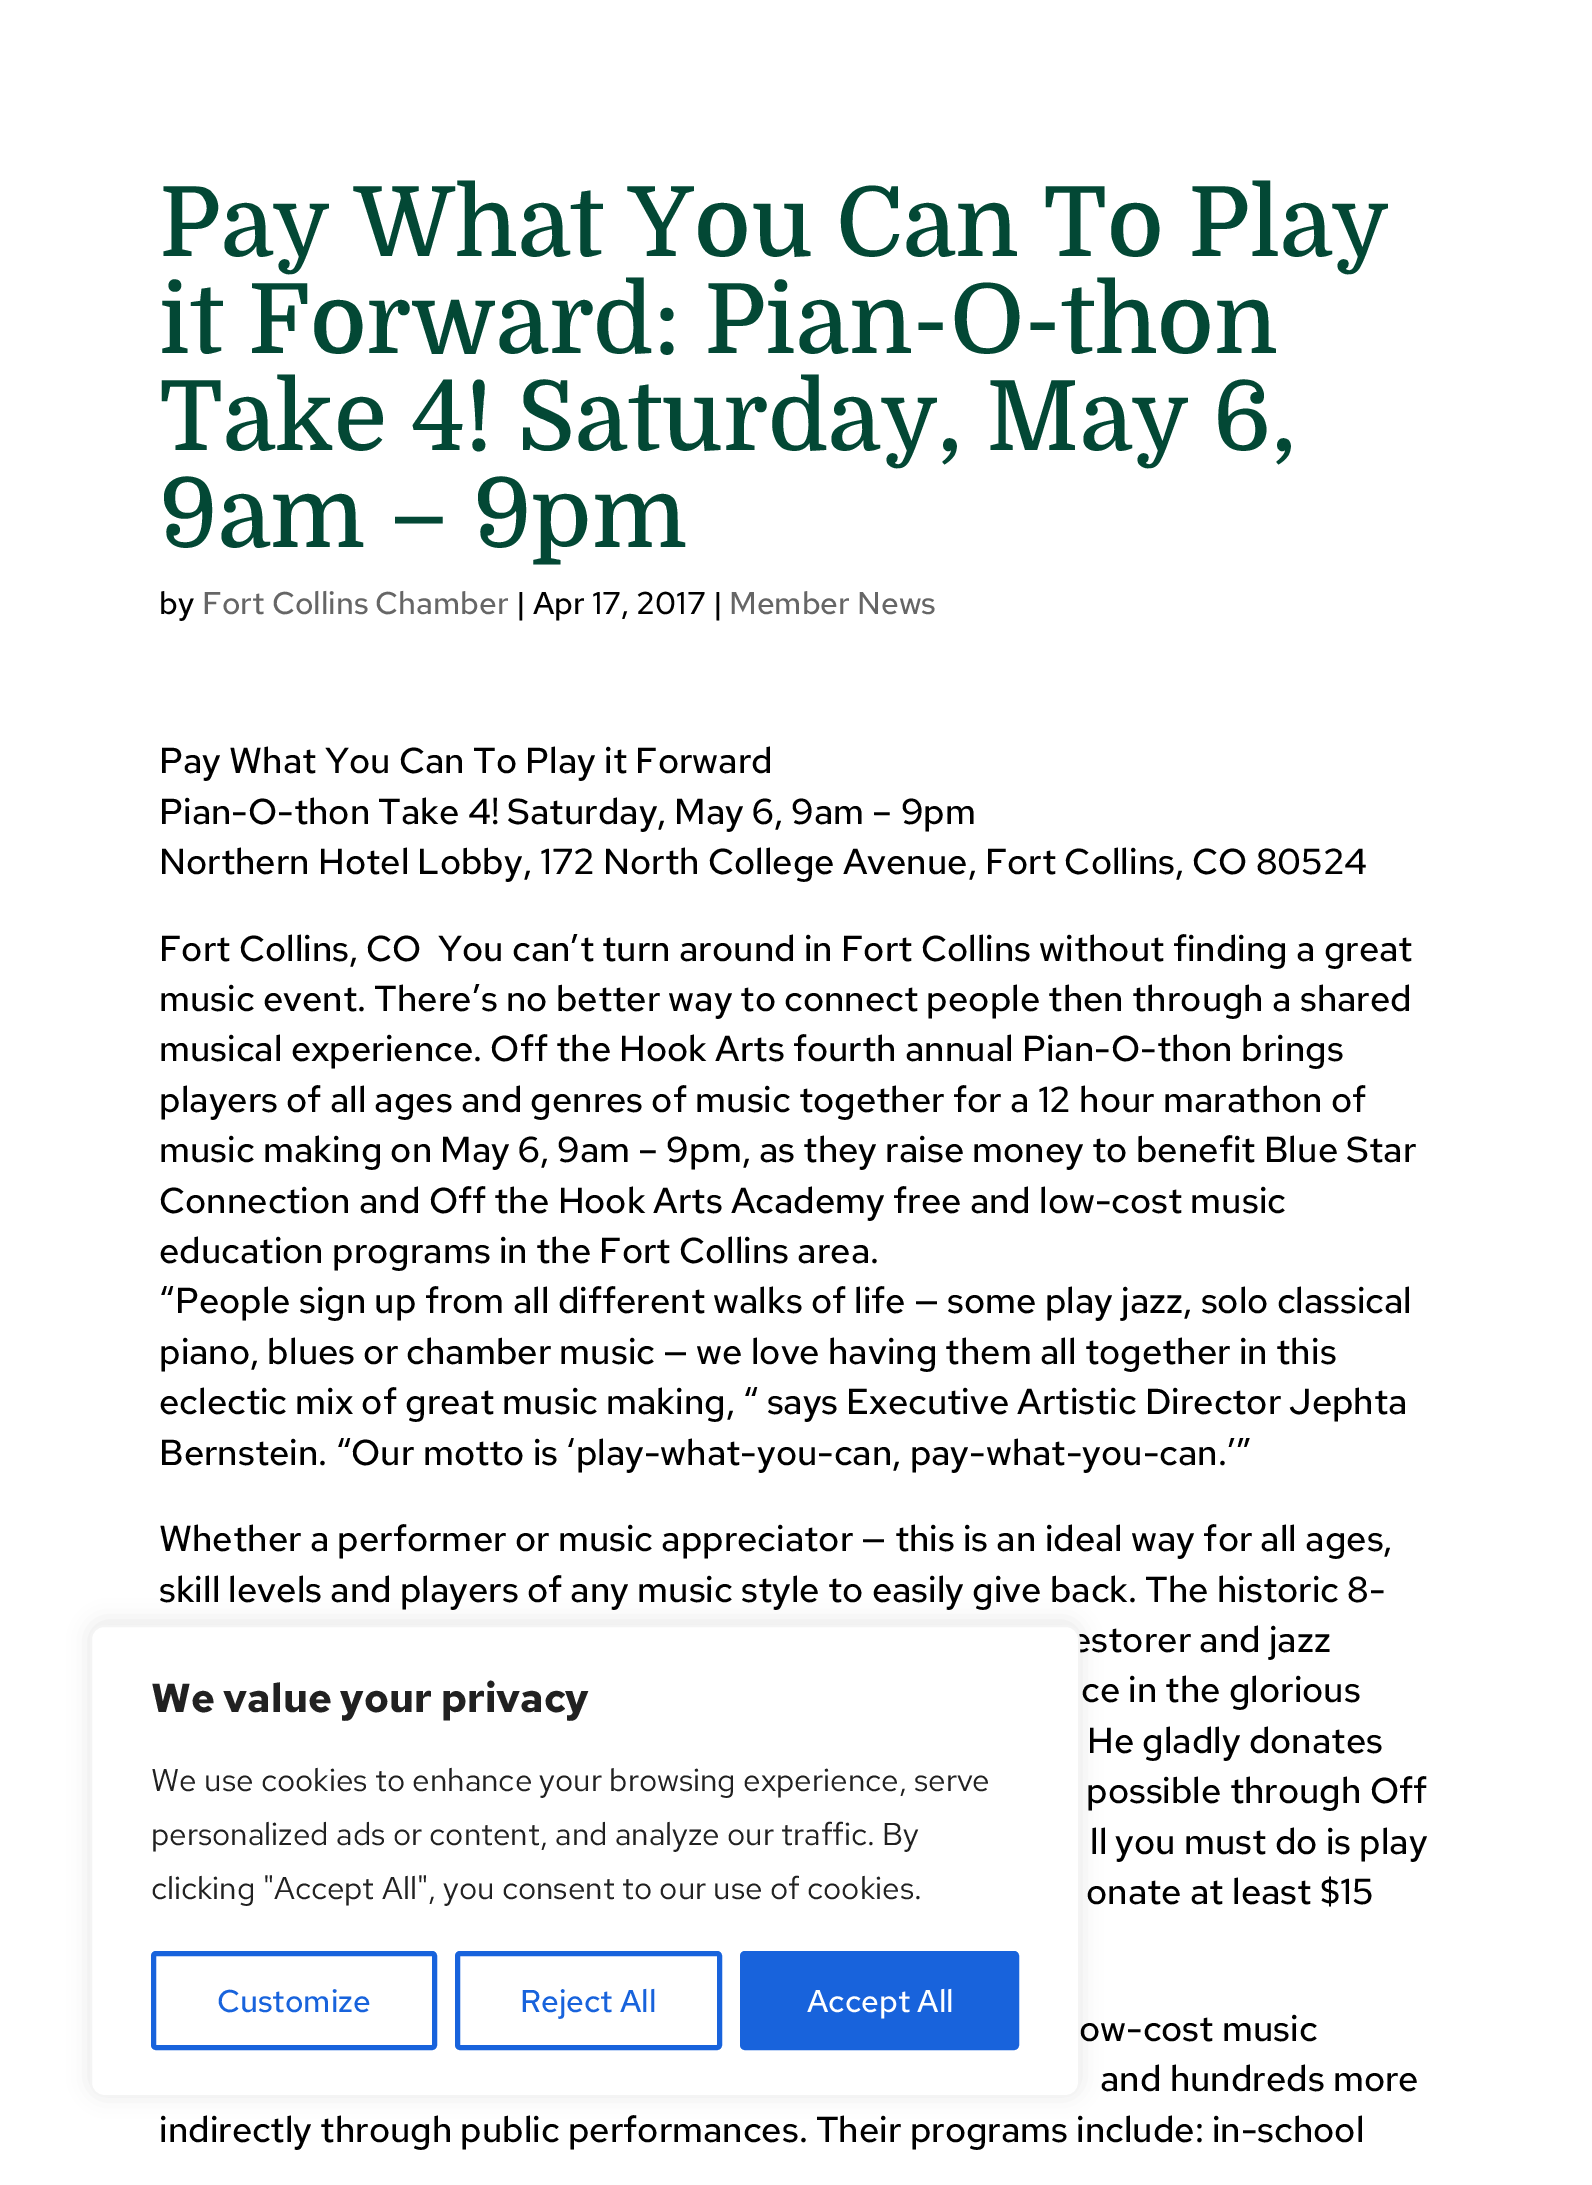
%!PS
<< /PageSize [1592 2185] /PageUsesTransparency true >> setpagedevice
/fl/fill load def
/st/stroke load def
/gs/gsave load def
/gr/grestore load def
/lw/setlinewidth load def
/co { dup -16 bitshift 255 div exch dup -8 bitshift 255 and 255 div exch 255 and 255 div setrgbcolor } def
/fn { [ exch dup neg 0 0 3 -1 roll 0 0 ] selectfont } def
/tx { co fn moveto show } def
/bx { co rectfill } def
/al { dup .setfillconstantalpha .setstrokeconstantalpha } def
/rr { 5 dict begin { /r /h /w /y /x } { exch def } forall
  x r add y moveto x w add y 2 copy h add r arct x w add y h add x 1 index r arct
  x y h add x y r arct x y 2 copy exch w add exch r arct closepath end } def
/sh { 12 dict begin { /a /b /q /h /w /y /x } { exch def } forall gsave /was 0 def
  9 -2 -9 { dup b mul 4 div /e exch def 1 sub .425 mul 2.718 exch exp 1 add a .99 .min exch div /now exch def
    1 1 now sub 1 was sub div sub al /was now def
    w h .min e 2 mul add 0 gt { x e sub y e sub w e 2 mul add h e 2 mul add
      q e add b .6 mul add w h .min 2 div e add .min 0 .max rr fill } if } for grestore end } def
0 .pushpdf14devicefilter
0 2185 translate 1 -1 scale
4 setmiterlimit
0 0 1592 2185 16#FFFFFF bx
16#ACABAB co
90 1622 990 473 14 11 .3 sh
(Pay What You Can To Play) 159 256 /Domine-Medium 96.75 16#034835 tx
(it Forward: Pian-O-thon) 159 353 /Domine-Medium 96.75 16#034835 tx
(Take 4! Saturday, May 6,) 159 450 /Domine-Medium 96.75 16#034835 tx
(9am – 9pm) 159 547 /Domine-Medium 96.75 16#034835 tx
(by) 159 614 /RedHatText-Medium 31.5 16#000000 tx
(Fort Collins Chamber) 202 614 /RedHatText-Medium 31.5 16#666666 tx
(| Apr 17, 2017 |) 516 614 /RedHatText-Medium 31.5 16#000000 tx
(Member News) 729 614 /RedHatText-Medium 31.5 16#666666 tx
(Pay What You Can To Play it Forward) 159 773 /RedHatText-Medium 36 16#000000 tx
(Pian-O-thon Take 4! Saturday, May 6, 9am – 9pm) 159 824 /RedHatText-Medium 36 16#000000 tx
(Northern Hotel Lobby, 172 North College Avenue, Fort Collins, CO 80524) 159 874 /RedHatText-Medium 36 16#000000 tx
(Fort Collins, CO  You can’t turn around in Fort Collins without finding a great) 159 961 /RedHatText-Medium 36 16#000000 tx
(music event. There’s no better way to connect people then through a shared) 159 1011 /RedHatText-Medium 36 16#000000 tx
(musical experience. Off the Hook Arts fourth annual Pian-O-thon brings) 159 1061 /RedHatText-Medium 36 16#000000 tx
(players of all ages and genres of music together for a 12 hour marathon of) 159 1112 /RedHatText-Medium 36 16#000000 tx
(music making on May 6, 9am – 9pm, as they raise money to benefit Blue Star) 159 1162 /RedHatText-Medium 36 16#000000 tx
(Connection and Off the Hook Arts Academy free and low-cost music) 159 1213 /RedHatText-Medium 36 16#000000 tx
(education programs in the Fort Collins area.) 159 1263 /RedHatText-Medium 36 16#000000 tx
(“People sign up from all different walks of life — some play jazz, solo classical) 159 1313 /RedHatText-Medium 36 16#000000 tx
(piano, blues or chamber music — we love having them all together in this) 159 1364 /RedHatText-Medium 36 16#000000 tx
(eclectic mix of great music making, “ says Executive Artistic Director Jephta) 159 1414 /RedHatText-Medium 36 16#000000 tx
(Bernstein. “Our motto is ‘play-what-you-can, pay-what-you-can.’”) 159 1465 /RedHatText-Medium 36 16#000000 tx
(Whether a performer or music appreciator — this is an ideal way for all ages,) 159 1551 /RedHatText-Medium 36 16#000000 tx
(skill levels and players of any music style to easily give back. The historic 8-) 159 1602 /RedHatText-Medium 36 16#000000 tx
(estorer and jazz) 1071 1652 /RedHatText-Medium 36 16#000000 tx
(ce in the glorious) 1081 1702 /RedHatText-Medium 36 16#000000 tx
(He gladly donates) 1087 1753 /RedHatText-Medium 36 16#000000 tx
(possible through Off) 1086 1803 /RedHatText-Medium 36 16#000000 tx
(ll you must do is play) 1090 1854 /RedHatText-Medium 36 16#000000 tx
(onate at least $15) 1086 1904 /RedHatText-Medium 36 16#000000 tx
(ow-cost music) 1079 2041 /RedHatText-Medium 36 16#000000 tx
(and hundreds more) 1100 2091 /RedHatText-Medium 36 16#000000 tx
(indirectly through public performances. Their programs include: in-school) 159 2142 /RedHatText-Medium 36 16#000000 tx
16#FFFFFF co
91 1626 988 470 13 rr gs fl gr
16#F4F4F4 co
2 lw
st
(We value your privacy) 151 1712 /RedHatText-Bold 40.5 16#212121 tx
(We use cookies to enhance your browsing experience, serve) 151 1791 /RedHatText-Regular 31.5 16#212121 tx
(personalized ads or content, and analyze our traffic. By) 151 1845 /RedHatText-Regular 31.5 16#212121 tx
(clicking "Accept All", you consent to our use of cookies.) 151 1899 /RedHatText-Regular 31.5 16#212121 tx
16#1863DC co
5 lw
153.5 1953.5 281 94 2.5 rr st
(Customize) 217 2012 /RedHatText-Medium 31.5 16#1863DC tx
457.5 1953.5 262 94 2.5 rr st
(Reject All) 520 2012 /RedHatText-Medium 31.5 16#1863DC tx
742.5 1953.5 274 94 2.5 rr gs fl gr
st
(Accept All) 807 2012 /RedHatText-Medium 31.5 16#FFFFFF tx
.poppdf14devicefilter showpage
